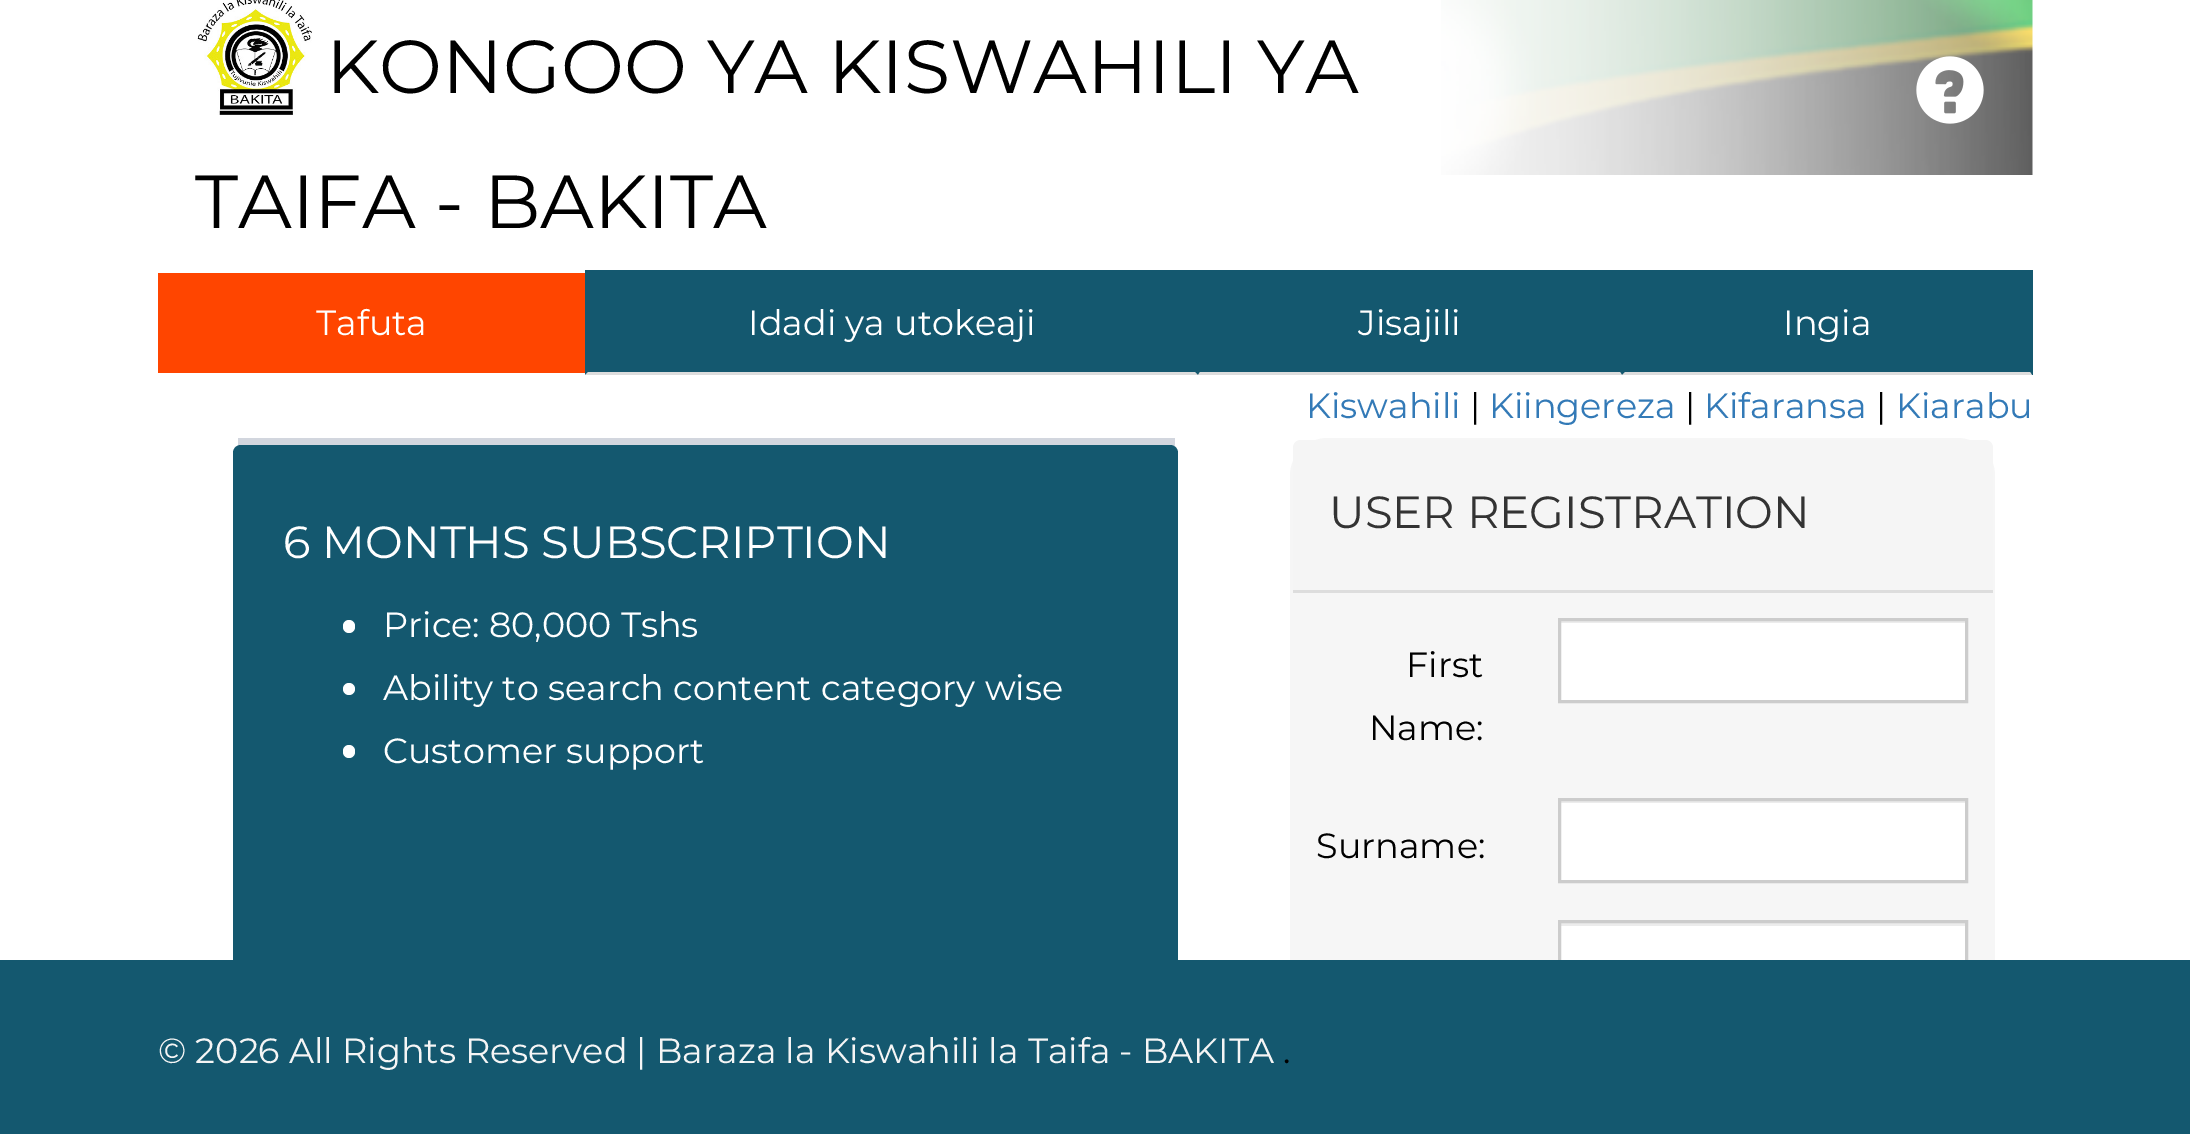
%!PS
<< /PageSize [2190 1134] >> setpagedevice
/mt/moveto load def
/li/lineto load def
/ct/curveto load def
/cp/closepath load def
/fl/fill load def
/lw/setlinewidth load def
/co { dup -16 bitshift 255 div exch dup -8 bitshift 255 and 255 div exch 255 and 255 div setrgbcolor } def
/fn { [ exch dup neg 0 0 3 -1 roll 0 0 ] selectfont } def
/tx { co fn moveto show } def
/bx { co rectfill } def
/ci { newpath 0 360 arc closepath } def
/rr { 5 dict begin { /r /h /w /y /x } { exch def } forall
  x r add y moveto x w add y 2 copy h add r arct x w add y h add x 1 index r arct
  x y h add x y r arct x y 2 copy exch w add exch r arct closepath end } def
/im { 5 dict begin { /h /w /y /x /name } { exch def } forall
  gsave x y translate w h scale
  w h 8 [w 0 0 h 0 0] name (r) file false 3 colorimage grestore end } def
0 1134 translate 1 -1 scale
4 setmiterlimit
0 0 2190 1134 16#FFFFFF bx
(media/1.raw) 1441 0 592 175 im
(media/2.raw) 197 0 115 115 im
(media/3.raw) 1916 56 68 68 im
158 273 427 100 16#FF4500 bx
585 270 1448 105 16#14586F bx
16#DDDDDD co
1198 375 mt 585 375 li 588 372 li 1195 372 li cp fl
1622 375 mt 1198 375 li 1200 372 li 1620 372 li cp fl
2032 375 mt 1622 375 li 1625 372 li 2030 372 li cp fl
238 438 937 8 16#D2D6DE bx
16#14586F co
241 445 mt 1170 445 li 1174.5 445 1178 448.5 1178 453 ct 1178 1070 li 233 1070 li 233 453 li 233 448.5 236.5 445 241 445 ct cp fl
16#FFFFFF co
343 620 12 13 6 rr fl
349 689 6 ci fl
343 745 12 13 6 rr fl
16#F6F6F6 co
1290 438 705 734 38 rr fl
16#F5F5F5 co
1301 440 mt 1985 440 li 1989.5 440 1993 443.5 1993 448 ct 1993 593 li 1293 593 li 1293 448 li 1293 443.5 1296.5 440 1301 440 ct cp fl
1293 590 700 3 16#DDDDDD bx
1561 623 404 77 16#FFFFFF bx
1560 621 405 2 16#ECECEC bx
16#CCCCCC co
3 lw
1559.5 619.5 407 82 rectstroke
1561 803 404 77 16#FFFFFF bx
1560 801 405 2 16#ECECEC bx
16#CCCCCC co
1559.5 799.5 407 82 rectstroke
1561 926 404 34 16#FFFFFF bx
1560 923 405 3 16#ECECEC bx
16#CCCCCC co
1559.5 921.5 407 82 rectstroke
0 960 2190 174 16#14586F bx
(KONGOO YA KISWAHILI YA) 326 93 /Montserrat-Thin 75 16#000000 tx
(TAIFA - BAKITA) 195 228 /Montserrat-Thin 75 16#000000 tx
(Tafuta) 316 335 /Montserrat-Thin 35 16#FFFFFF tx
(Idadi ya utokeaji) 748 335 /Montserrat-Thin 35 16#FFFFFF tx
(Jisajili) 1358 335 /Montserrat-Thin 35 16#FFFFFF tx
(Ingia) 1783 335 /Montserrat-Thin 35 16#FFFFFF tx
(Kiswahili) 1306 418 /Montserrat-Thin 35 16#337AB7 tx
(|) 1470 418 /Montserrat-Thin 35 16#000000 tx
(Kiingereza) 1489 418 /Montserrat-Thin 35 16#337AB7 tx
(|) 1685 418 /Montserrat-Thin 35 16#000000 tx
(Kifaransa) 1704 418 /Montserrat-Thin 35 16#337AB7 tx
(|) 1876 418 /Montserrat-Thin 35 16#000000 tx
(Kiarabu) 1896 418 /Montserrat-Thin 35 16#337AB7 tx
(6 MONTHS SUBSCRIPTION) 283 558 /Montserrat-Thin 45 16#FFFFFF tx
(Price: 80,000 Tshs) 383 637 /Montserrat-Thin 35 16#FFFFFF tx
(Ability to search content category wise) 383 700 /Montserrat-Thin 35 16#FFFFFF tx
(Customer support) 383 763 /Montserrat-Thin 35 16#FFFFFF tx
(USER REGISTRATION) 1329 528 /Montserrat-Thin 45 16#333333 tx
(First) 1406 677 /Montserrat-Thin 35 16#000000 tx
(Name:) 1369 740 /Montserrat-Thin 35 16#000000 tx
(Surname:) 1316 858 /Montserrat-Thin 35 16#000000 tx
(© 2026 All Rights Reserved | Baraza la Kiswahili la Taifa - BAKITA) 158 1063 /Montserrat-Thin 35 16#F5F5F5 tx
(.) 1283 1063 /Montserrat-Thin 35 16#000000 tx
showpage
